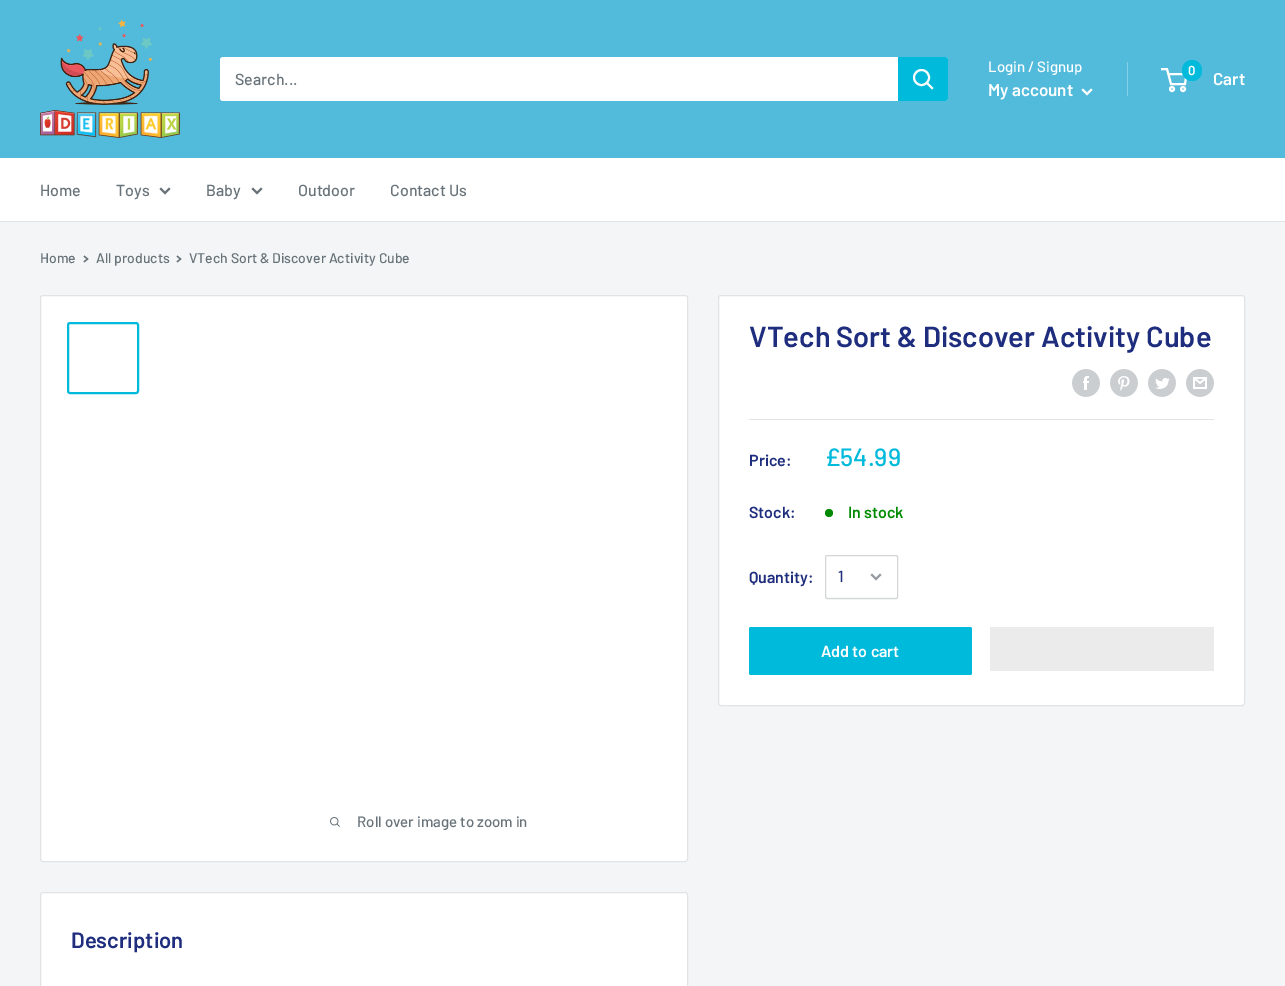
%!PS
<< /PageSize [1285 986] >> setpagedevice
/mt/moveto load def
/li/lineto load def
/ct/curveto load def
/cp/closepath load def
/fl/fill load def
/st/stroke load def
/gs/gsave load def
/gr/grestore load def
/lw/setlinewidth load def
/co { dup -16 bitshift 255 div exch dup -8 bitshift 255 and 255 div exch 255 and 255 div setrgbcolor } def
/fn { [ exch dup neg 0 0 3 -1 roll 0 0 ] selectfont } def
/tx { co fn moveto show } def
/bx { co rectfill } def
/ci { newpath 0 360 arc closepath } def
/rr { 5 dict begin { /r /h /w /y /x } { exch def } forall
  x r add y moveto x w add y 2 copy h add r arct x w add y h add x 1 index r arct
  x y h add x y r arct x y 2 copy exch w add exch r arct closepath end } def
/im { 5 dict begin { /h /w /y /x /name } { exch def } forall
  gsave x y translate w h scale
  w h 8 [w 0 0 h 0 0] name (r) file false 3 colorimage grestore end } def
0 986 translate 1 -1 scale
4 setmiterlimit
0 0 1285 986 16#F3F5F6 bx
0 0 1285 158 16#52BBDB bx
(media/1.raw) 40 20 140 118 im
16#FFFFFF co
220 57 728 44 3 rr fl
16#00BADB co
898 57 mt 945 57 li 946.5 57 948 58.5 948 60 ct 948 98 li 948 99.5 946.5 101 945 101 ct 898 101 li cp fl
16#FFFFFF co
2 lw
2 setlinecap
932 88 mt 927 83 li st
0 setlinecap
921.5 77.5 7.5 ci st
1127 62 1 34 16#86CFE6 bx
16#FFFFFF co
2 setlinecap
1091 90 mt 1087 94 li 1083 90 li st
0 setlinecap
1172 89 2 ci st
1183 89 2 ci st
1168.5 74 mt 1186.5 74 li 1185 84 li 1171 84 li 1167 69 li 1161 69 li st
16#00BADB co
1182 60 20 21 10 rr fl
0 158 1285 63 16#FFFFFF bx
0 221 1285 1 16#E1E3E4 bx
16#677279 co
2 setlinecap
169 189 mt 165 193 li 161 189 li st
261 189 mt 257 193 li 253 189 li st
1.3 lw
84.5 256.5 mt 87.5 259 li 84.5 261.5 li st
177.5 256.5 mt 180.5 259 li 177.5 261.5 li st
16#FFFFFF co
718.5 295.5 526 410 2.5 rr gs fl gr
16#E1E3E4 co
1 lw
0 setlinecap
st
(media/2.raw) 1072 369 28 28 im
(media/3.raw) 1110 369 28 28 im
(media/4.raw) 1148 369 28 28 im
(media/5.raw) 1186 369 28 28 im
749 419 465 1 16#E1E3E4 bx
16#008A00 co
829 513 4 ci fl
16#F6F7F7 co
826 596 mt 826 597 826 598 827 598 ct 896 598 li 897 596 li 896 597 li 831 597 li 830 597 827 598 826 596 ct cp fl
16#D4D6D8 co
825.5 555.5 72 43 1.5 rr st
16#959CA1 co
2 lw
2 setlinecap
880 575 mt 876 579 li 872 575 li st
16#00BADB co
749 627 223 48 2 rr fl
990 627 224 44 16#EBEBEB bx
16#FFFFFF co
40.5 295.5 647 566 2.5 rr gs fl gr
16#E1E3E4 co
1 lw
0 setlinecap
st
16#00BADB co
2 lw
68 323 70 70 2 rr st
(media/6.raw) 330 817 10 10 im
16#FFFFFF co
40.5 892.5 647 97 2.5 rr gs fl gr
16#E1E3E4 co
1 lw
st
(Search...) 235 85 /Barlow-Medium 16 16#677279 tx
(Login / Signup) 988 72 /Barlow-Medium 15 16#FFFFFF tx
(My account) 988 96 /Barlow-SemiBold 17 16#FFFFFF tx
(0) 1188 75 /Barlow-SemiBold 13 16#FFFFFF tx
(Cart) 1213 85 /Barlow-SemiBold 17 16#FFFFFF tx
(Home) 40 196 /Barlow-Medium 16 16#677279 tx
(Toys) 116 196 /Barlow-Medium 16 16#677279 tx
(Baby) 206 196 /Barlow-Medium 16 16#677279 tx
(Outdoor) 298 196 /Barlow-Medium 16 16#677279 tx
(Contact Us) 390 196 /Barlow-Medium 16 16#677279 tx
(Home) 40 263 /Barlow-Medium 14 16#677279 tx
(All products) 96 263 /Barlow-Medium 14 16#677279 tx
(VTech Sort & Discover Activity Cube) 189 263 /Barlow-Medium 14 16#677279 tx
(VTech Sort & Discover Activity Cube) 749 347 /Barlow-SemiBold 29 16#1E2D7D tx
(Price:) 749 466 /Barlow-SemiBold 16 16#1E2D7D tx
(£54.99) 825 466 /Barlow-Medium 25 16#00BADB tx
(Stock:) 749 518 /Barlow-SemiBold 16 16#1E2D7D tx
(In stock) 848 518 /Barlow-SemiBold 16 16#008A00 tx
(Quantity:) 749 583 /Barlow-SemiBold 16 16#1E2D7D tx
(1) 838 582 /Barlow-Medium 16 16#1E2D7D tx
(Add to cart) 821 657 /Barlow-SemiBold 16 16#FFFFFF tx
(Roll over image to zoom in) 357 827 /Barlow-Medium 15 16#677279 tx
(Description) 71 948 /Barlow-SemiBold 22 16#1E2D7D tx
showpage
